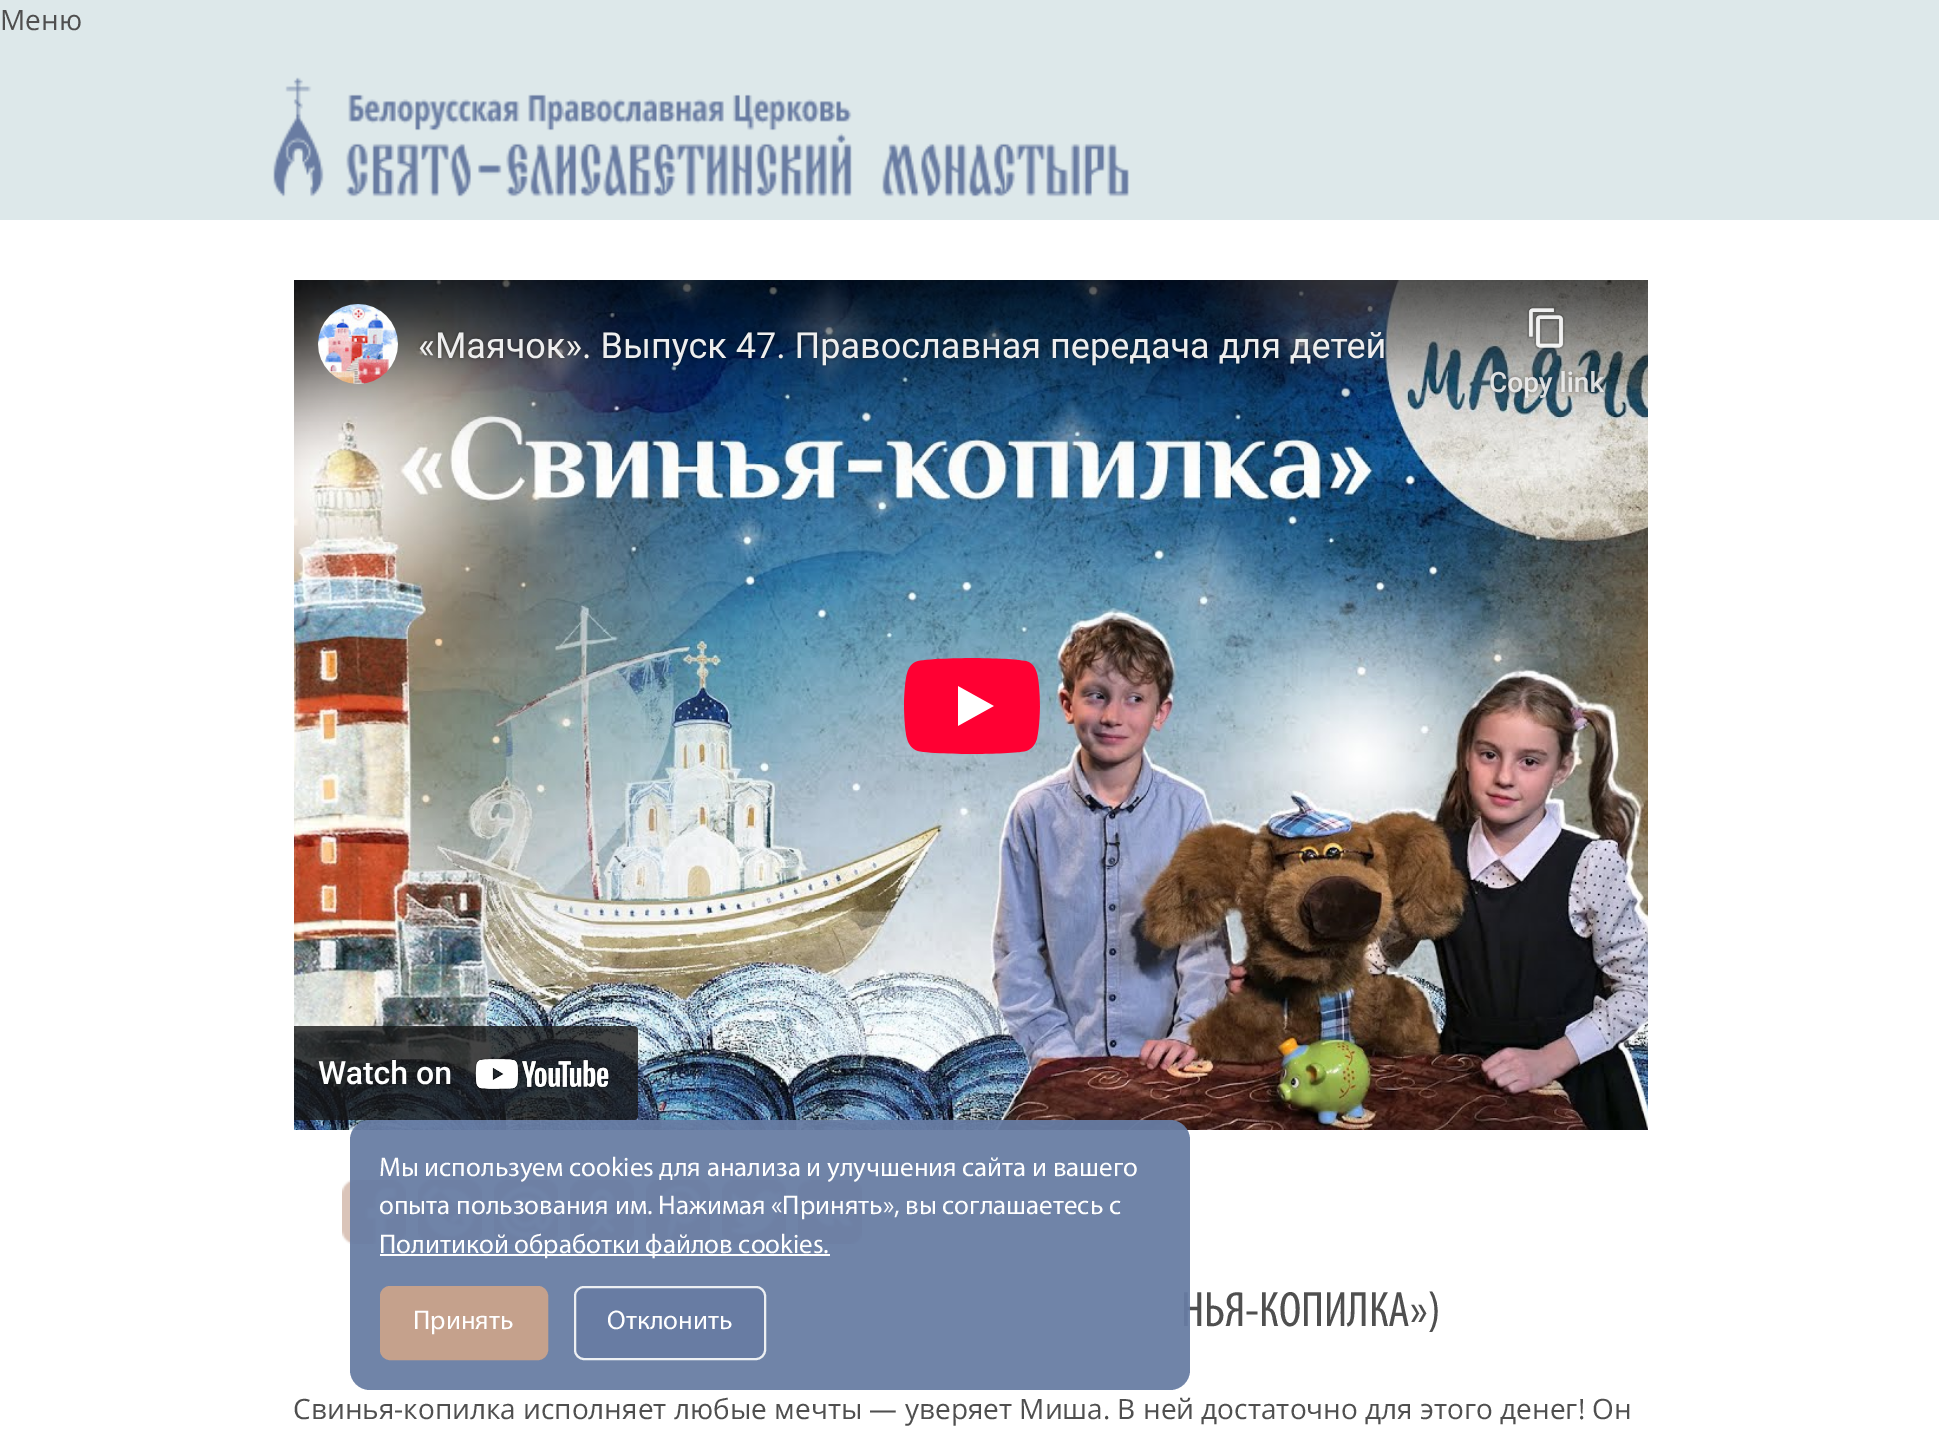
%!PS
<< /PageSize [1939 1429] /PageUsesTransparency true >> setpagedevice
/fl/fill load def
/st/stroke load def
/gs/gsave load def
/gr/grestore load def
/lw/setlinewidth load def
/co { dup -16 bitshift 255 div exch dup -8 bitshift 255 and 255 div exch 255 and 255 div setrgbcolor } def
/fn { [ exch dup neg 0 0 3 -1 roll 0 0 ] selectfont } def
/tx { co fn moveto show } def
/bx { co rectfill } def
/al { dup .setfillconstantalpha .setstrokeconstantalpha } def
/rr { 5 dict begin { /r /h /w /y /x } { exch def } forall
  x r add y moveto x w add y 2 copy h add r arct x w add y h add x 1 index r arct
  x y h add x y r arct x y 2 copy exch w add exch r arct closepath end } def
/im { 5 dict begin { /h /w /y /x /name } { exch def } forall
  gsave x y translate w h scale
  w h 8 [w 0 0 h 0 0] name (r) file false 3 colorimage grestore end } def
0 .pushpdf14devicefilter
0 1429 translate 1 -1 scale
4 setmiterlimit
0 0 1939 1429 16#DDE8EA bx
0 220 1939 1209 16#FFFFFF bx
(media/1.raw) 294 280 1354 850 im
(media/2.raw) 342 1180 64 64 im
(media/3.raw) 418 1180 64 64 im
(media/4.raw) 494 1180 64 64 im
(media/5.raw) 570 1180 64 64 im
(media/6.raw) 646 1180 64 64 im
(media/7.raw) 722 1180 64 64 im
(media/8.raw) 798 1180 64 64 im
(media/9.raw) 273 77 856 120 im
(Меню) 0 30 /OpenSans-Regular 28 16#4F4F4F tx
(НЬЯ-КОПИЛКА»\)) 1181 1326 /Myriad-Regular 50 16#4F4F4F tx
(Свинья-копилка исполняет любые мечты — уверяет Миша. В ней достаточно для этого денег! Он) 293 1419 /OpenSans-Regular 28 16#4F4F4F tx
0.94 al
16#677CA3 co
350 1120 840 270 20 rr fl
1 al
(Мы используем cookies для анализа и улучшения сайта и вашего) 379 1176 /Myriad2-Regular 27 16#FFFFFF tx
(опыта пользования им. Нажимая «Принять», вы соглашаетесь с) 379 1214 /Myriad2-Regular 27 16#FFFFFF tx
380 1254 450 2 16#FFFFFF bx
(Политикой обработки файлов cookies.) 379 1253 /Myriad2-Regular 27 16#FFFFFF tx
16#C5A18C co
381 1287 166 72 9 rr gs fl gr
2 lw
st
(Принять) 413 1329 /Myriad2-Regular 27 16#FFFFFF tx
0.94 al
16#677CA3 co
575 1287 190 72 9 rr fl
1 al
16#EDF0F3 co
575 1287 190 72 9 rr st
(Отклонить) 607 1329 /Myriad2-Regular 27 16#FFFFFF tx
.poppdf14devicefilter showpage
